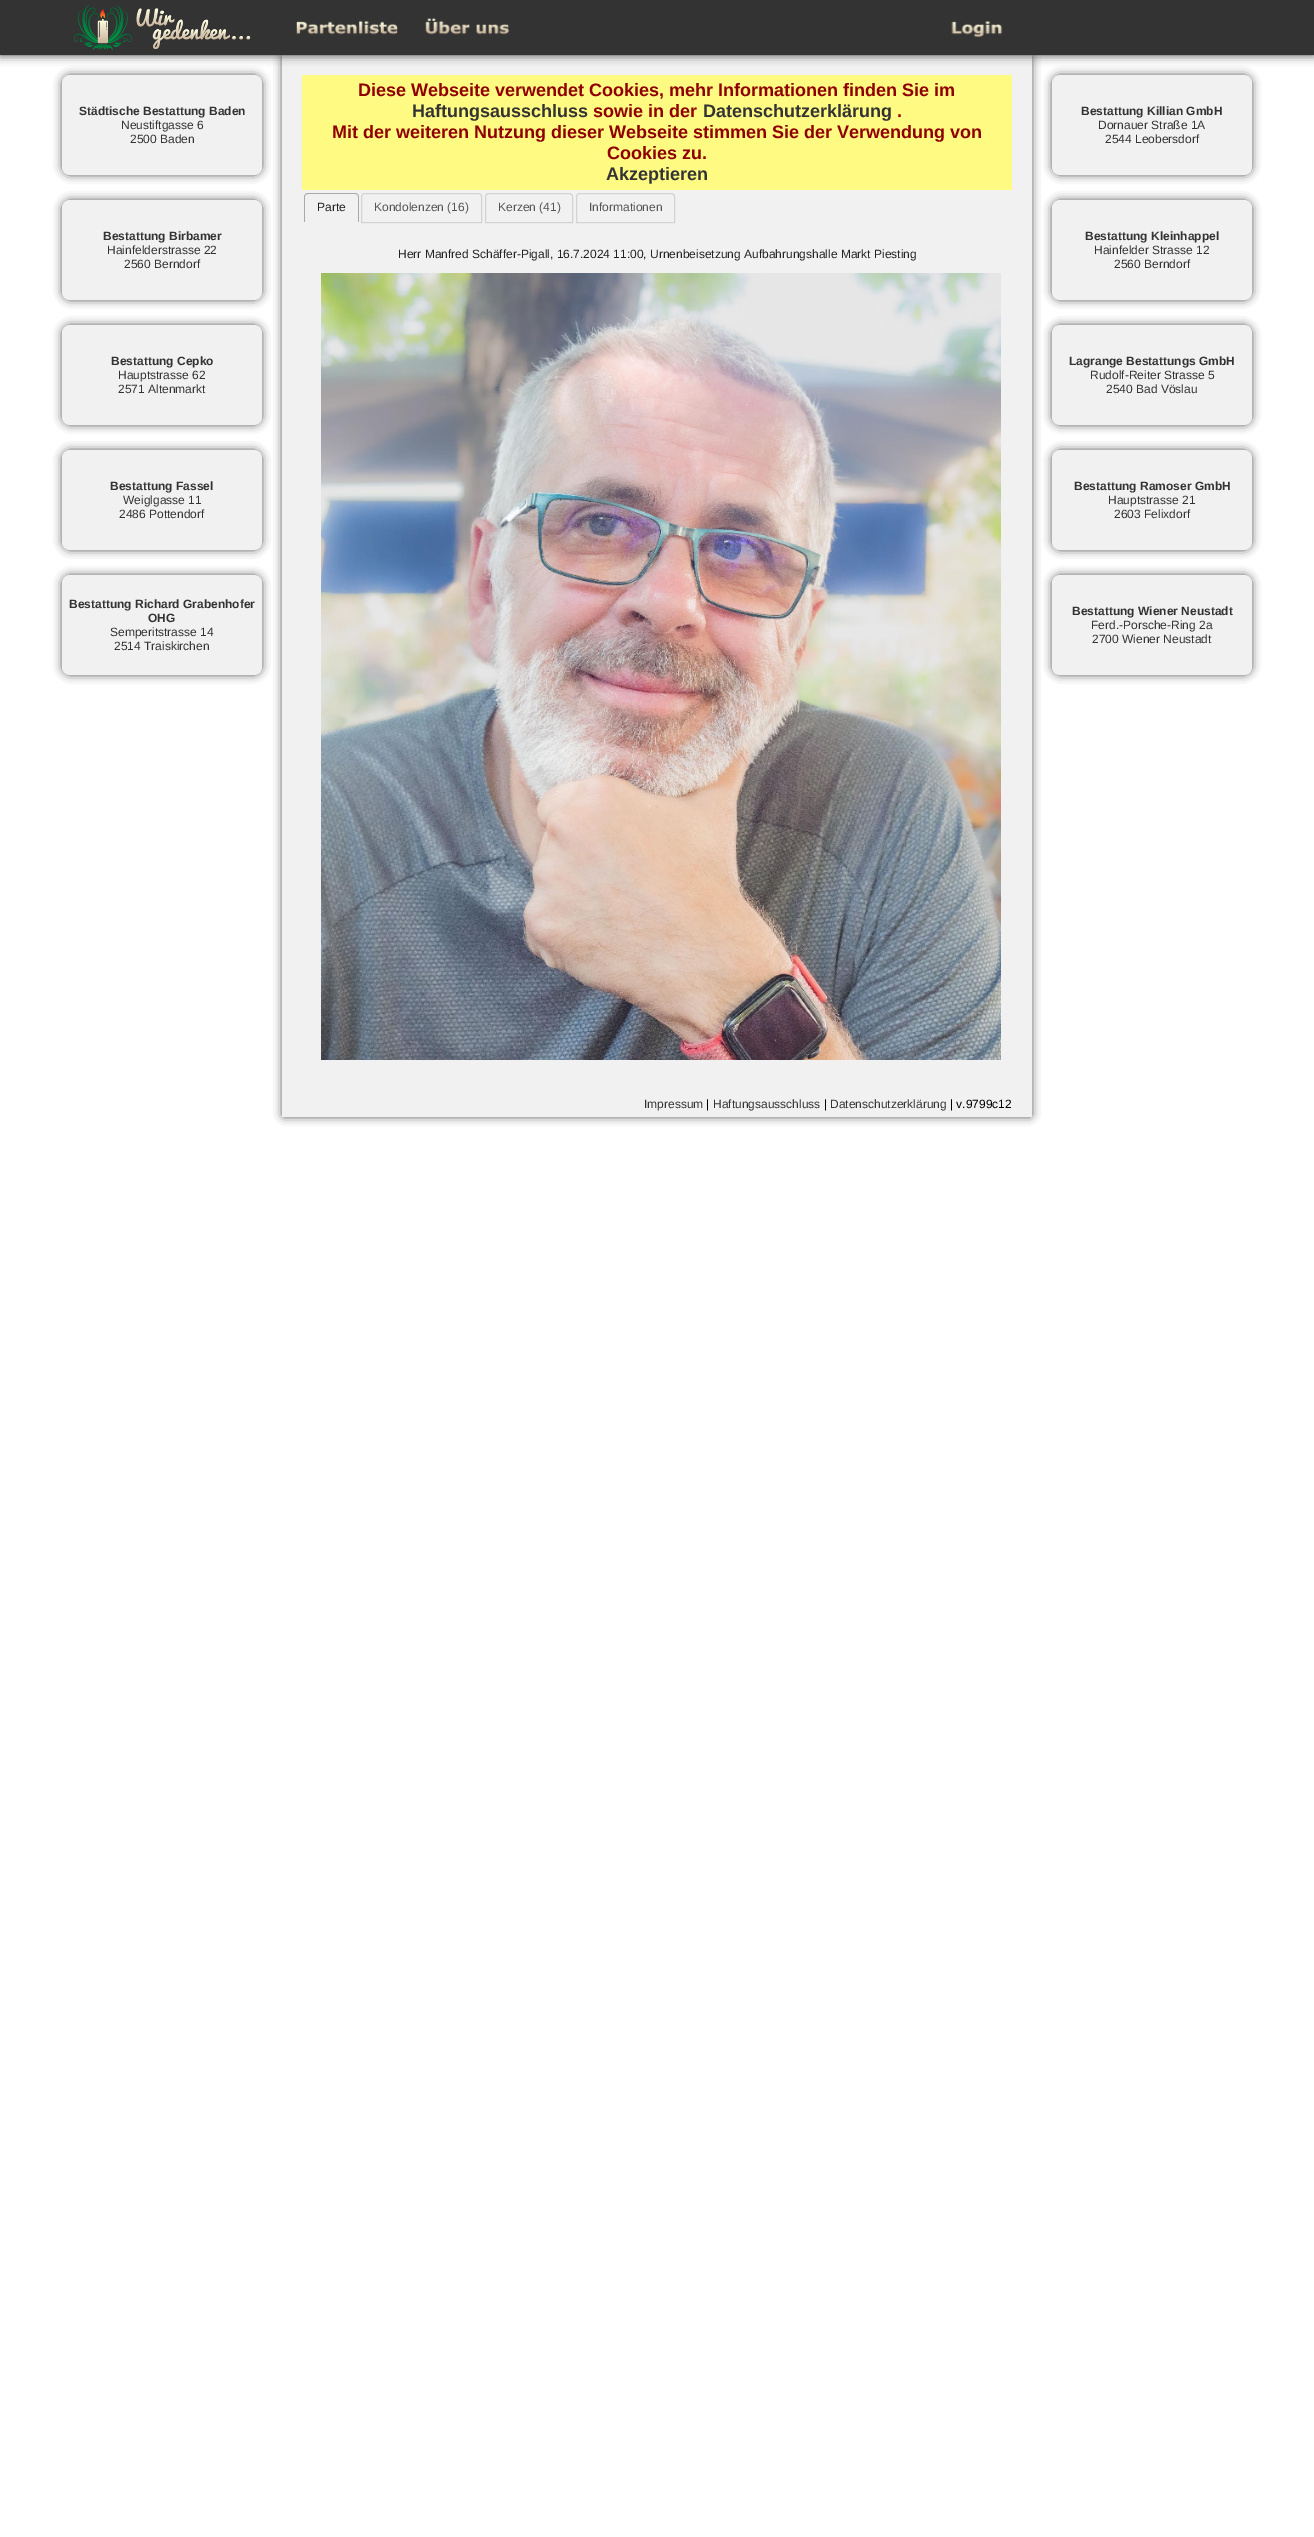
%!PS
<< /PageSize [1314 2537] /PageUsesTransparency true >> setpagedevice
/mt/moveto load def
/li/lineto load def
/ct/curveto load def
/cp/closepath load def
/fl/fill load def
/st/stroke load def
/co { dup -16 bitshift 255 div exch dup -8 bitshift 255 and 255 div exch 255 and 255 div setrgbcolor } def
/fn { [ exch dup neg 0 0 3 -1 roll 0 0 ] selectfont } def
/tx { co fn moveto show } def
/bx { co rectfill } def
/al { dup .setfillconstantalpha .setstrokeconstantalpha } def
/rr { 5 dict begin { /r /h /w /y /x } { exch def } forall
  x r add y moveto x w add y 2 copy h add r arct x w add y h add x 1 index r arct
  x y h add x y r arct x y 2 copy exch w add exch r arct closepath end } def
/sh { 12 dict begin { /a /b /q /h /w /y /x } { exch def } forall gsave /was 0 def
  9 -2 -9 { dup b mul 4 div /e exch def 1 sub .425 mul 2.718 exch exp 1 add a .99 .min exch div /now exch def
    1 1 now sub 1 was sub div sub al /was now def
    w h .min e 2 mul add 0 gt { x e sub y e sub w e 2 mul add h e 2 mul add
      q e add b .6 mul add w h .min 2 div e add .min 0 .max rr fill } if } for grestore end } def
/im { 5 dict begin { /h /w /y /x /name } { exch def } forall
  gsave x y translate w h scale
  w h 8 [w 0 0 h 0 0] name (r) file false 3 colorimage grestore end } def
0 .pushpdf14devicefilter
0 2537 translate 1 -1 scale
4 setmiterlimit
0 0 1314 2537 16#FFFFFF bx
16#000000 co
284 57 746 1058 0 5 1 sh
282 55 750 1062 16#F1F1F1 bx
16#333333 co
0 0 1314 55 0 5 1 sh
0 0 1314 55 16#333333 bx
(media/1.raw) 74 4 177 47 im
(media/2.raw) 296 20 102 15 im
(media/3.raw) 425 18 85 17 im
(media/4.raw) 951 21 52 17 im
302 75 710 115 16#FFFA81 bx
16#AAAAAA co
308 193 mt 355 193 li 357 193 359 195 359 197 ct 359 222 li 304 222 li 304 197 li 304 195 306 193 308 193 ct cp 308 194 mt 355 194 li 357 194 358 195 358 197 ct 358 222 li 305 222 li 305 197 li 305 195 306 194 308 194 ct cp eofill
16#D3D3D3 co
365 193.5 mt 478 193.5 li 480 193.5 481.5 195 481.5 197 ct 481.5 222.5 li 361.5 222.5 li 361.5 197 li 361.5 195 363 193.5 365 193.5 ct cp st
489 193.5 mt 569 193.5 li 571 193.5 572.5 195 572.5 197 ct 572.5 222.5 li 485.5 222.5 li 485.5 197 li 485.5 195 487 193.5 489 193.5 ct cp st
580 193.5 mt 671 193.5 li 673 193.5 674.5 195 674.5 197 ct 674.5 222.5 li 576.5 222.5 li 576.5 197 li 576.5 195 578 193.5 580 193.5 ct cp st
(media/5.raw) 321 273 680 787 im
16#000000 co
64 77 196 96 6 5 1 sh
16#F1F1F1 co
62 75 200 100 8 rr fl
16#000000 co
64 202 196 96 6 5 1 sh
16#F1F1F1 co
62 200 200 100 8 rr fl
16#000000 co
64 327 196 96 6 5 1 sh
16#F1F1F1 co
62 325 200 100 8 rr fl
16#000000 co
64 452 196 96 6 5 1 sh
16#F1F1F1 co
62 450 200 100 8 rr fl
16#000000 co
64 577 196 96 6 5 1 sh
16#F1F1F1 co
62 575 200 100 8 rr fl
16#000000 co
1054 77 196 96 6 5 1 sh
16#F1F1F1 co
1052 75 200 100 8 rr fl
16#000000 co
1054 202 196 96 6 5 1 sh
16#F1F1F1 co
1052 200 200 100 8 rr fl
16#000000 co
1054 327 196 96 6 5 1 sh
16#F1F1F1 co
1052 325 200 100 8 rr fl
16#000000 co
1054 452 196 96 6 5 1 sh
16#F1F1F1 co
1052 450 200 100 8 rr fl
16#000000 co
1054 577 196 96 6 5 1 sh
16#F1F1F1 co
1052 575 200 100 8 rr fl
(Diese Webseite verwendet Cookies, mehr Informationen finden Sie im) 358 96 /LiberationSans-Bold 18 16#8F0000 tx
(Haftungsausschluss) 412 117 /LiberationSans-Bold 18 16#333333 tx
(sowie in der) 593 117 /LiberationSans-Bold 18 16#8F0000 tx
(Datenschutzerklärung) 703 117 /LiberationSans-Bold 18 16#333333 tx
(.) 897 117 /LiberationSans-Bold 18 16#8F0000 tx
(Mit der weiteren Nutzung dieser Webseite stimmen Sie der Verwendung von) 332 138 /LiberationSans-Bold 18 16#8F0000 tx
(Cookies zu.) 607 159 /LiberationSans-Bold 18 16#8F0000 tx
(Akzeptieren) 606 180 /LiberationSans-Bold 18 16#333333 tx
(Parte) 317 211 /LiberationSans-Regular 12 16#222222 tx
(Kondolenzen \(16\)) 374 211 /LiberationSans-Regular 12 16#555555 tx
(Kerzen \(41\)) 498 211 /LiberationSans-Regular 12 16#555555 tx
(Informationen) 589 211 /LiberationSans-Regular 12 16#555555 tx
(Herr Manfred Schäffer-Pigall, 16.7.2024 11:00, Urnenbeisetzung Aufbahrungshalle Markt Piesting) 398 258 /LiberationSans-Regular 12 16#222222 tx
(Impressum) 644 1108 /LiberationSans-Regular 12 16#333333 tx
(|) 706 1108 /LiberationSans-Regular 12 16#000000 tx
(Haftungsausschluss) 713 1108 /LiberationSans-Regular 12 16#333333 tx
(|) 824 1108 /LiberationSans-Regular 12 16#000000 tx
(Datenschutzerklärung) 830 1108 /LiberationSans-Regular 12 16#333333 tx
(| v.9799c12) 950 1108 /LiberationSans-Regular 12 16#000000 tx
(Städtische Bestattung Baden) 79 115 /LiberationSans-Bold 12 16#333333 tx
(Neustiftgasse 6) 121 129 /LiberationSans-Regular 12 16#333333 tx
(2500 Baden) 130 143 /LiberationSans-Regular 12 16#333333 tx
(Bestattung Birbamer) 103 240 /LiberationSans-Bold 12 16#333333 tx
(Hainfelderstrasse 22) 107 254 /LiberationSans-Regular 12 16#333333 tx
(2560 Berndorf) 124 268 /LiberationSans-Regular 12 16#333333 tx
(Bestattung Cepko) 111 365 /LiberationSans-Bold 12 16#333333 tx
(Hauptstrasse 62) 118 379 /LiberationSans-Regular 12 16#333333 tx
(2571 Altenmarkt) 118 393 /LiberationSans-Regular 12 16#333333 tx
(Bestattung Fassel) 110 490 /LiberationSans-Bold 12 16#333333 tx
(Weiglgasse 11) 123 504 /LiberationSans-Regular 12 16#333333 tx
(2486 Pottendorf) 119 518 /LiberationSans-Regular 12 16#333333 tx
(Bestattung Richard Grabenhofer) 69 608 /LiberationSans-Bold 12 16#333333 tx
(OHG) 148 622 /LiberationSans-Bold 12 16#333333 tx
(Semperitstrasse 14) 110 636 /LiberationSans-Regular 12 16#333333 tx
(2514 Traiskirchen) 114 650 /LiberationSans-Regular 12 16#333333 tx
(Bestattung Killian GmbH) 1081 115 /LiberationSans-Bold 12 16#333333 tx
(Dornauer Straße 1A) 1098 129 /LiberationSans-Regular 12 16#333333 tx
(2544 Leobersdorf) 1105 143 /LiberationSans-Regular 12 16#333333 tx
(Bestattung Kleinhappel) 1085 240 /LiberationSans-Bold 12 16#333333 tx
(Hainfelder Strasse 12) 1094 254 /LiberationSans-Regular 12 16#333333 tx
(2560 Berndorf) 1114 268 /LiberationSans-Regular 12 16#333333 tx
(Lagrange Bestattungs GmbH) 1069 365 /LiberationSans-Bold 12 16#333333 tx
(Rudolf-Reiter Strasse 5) 1090 379 /LiberationSans-Regular 12 16#333333 tx
(2540 Bad Vöslau) 1106 393 /LiberationSans-Regular 12 16#333333 tx
(Bestattung Ramoser GmbH) 1074 490 /LiberationSans-Bold 12 16#333333 tx
(Hauptstrasse 21) 1108 504 /LiberationSans-Regular 12 16#333333 tx
(2603 Felixdorf) 1114 518 /LiberationSans-Regular 12 16#333333 tx
(Bestattung Wiener Neustadt) 1072 615 /LiberationSans-Bold 12 16#333333 tx
(Ferd.-Porsche-Ring 2a) 1091 629 /LiberationSans-Regular 12 16#333333 tx
(2700 Wiener Neustadt) 1092 643 /LiberationSans-Regular 12 16#333333 tx
.poppdf14devicefilter showpage
